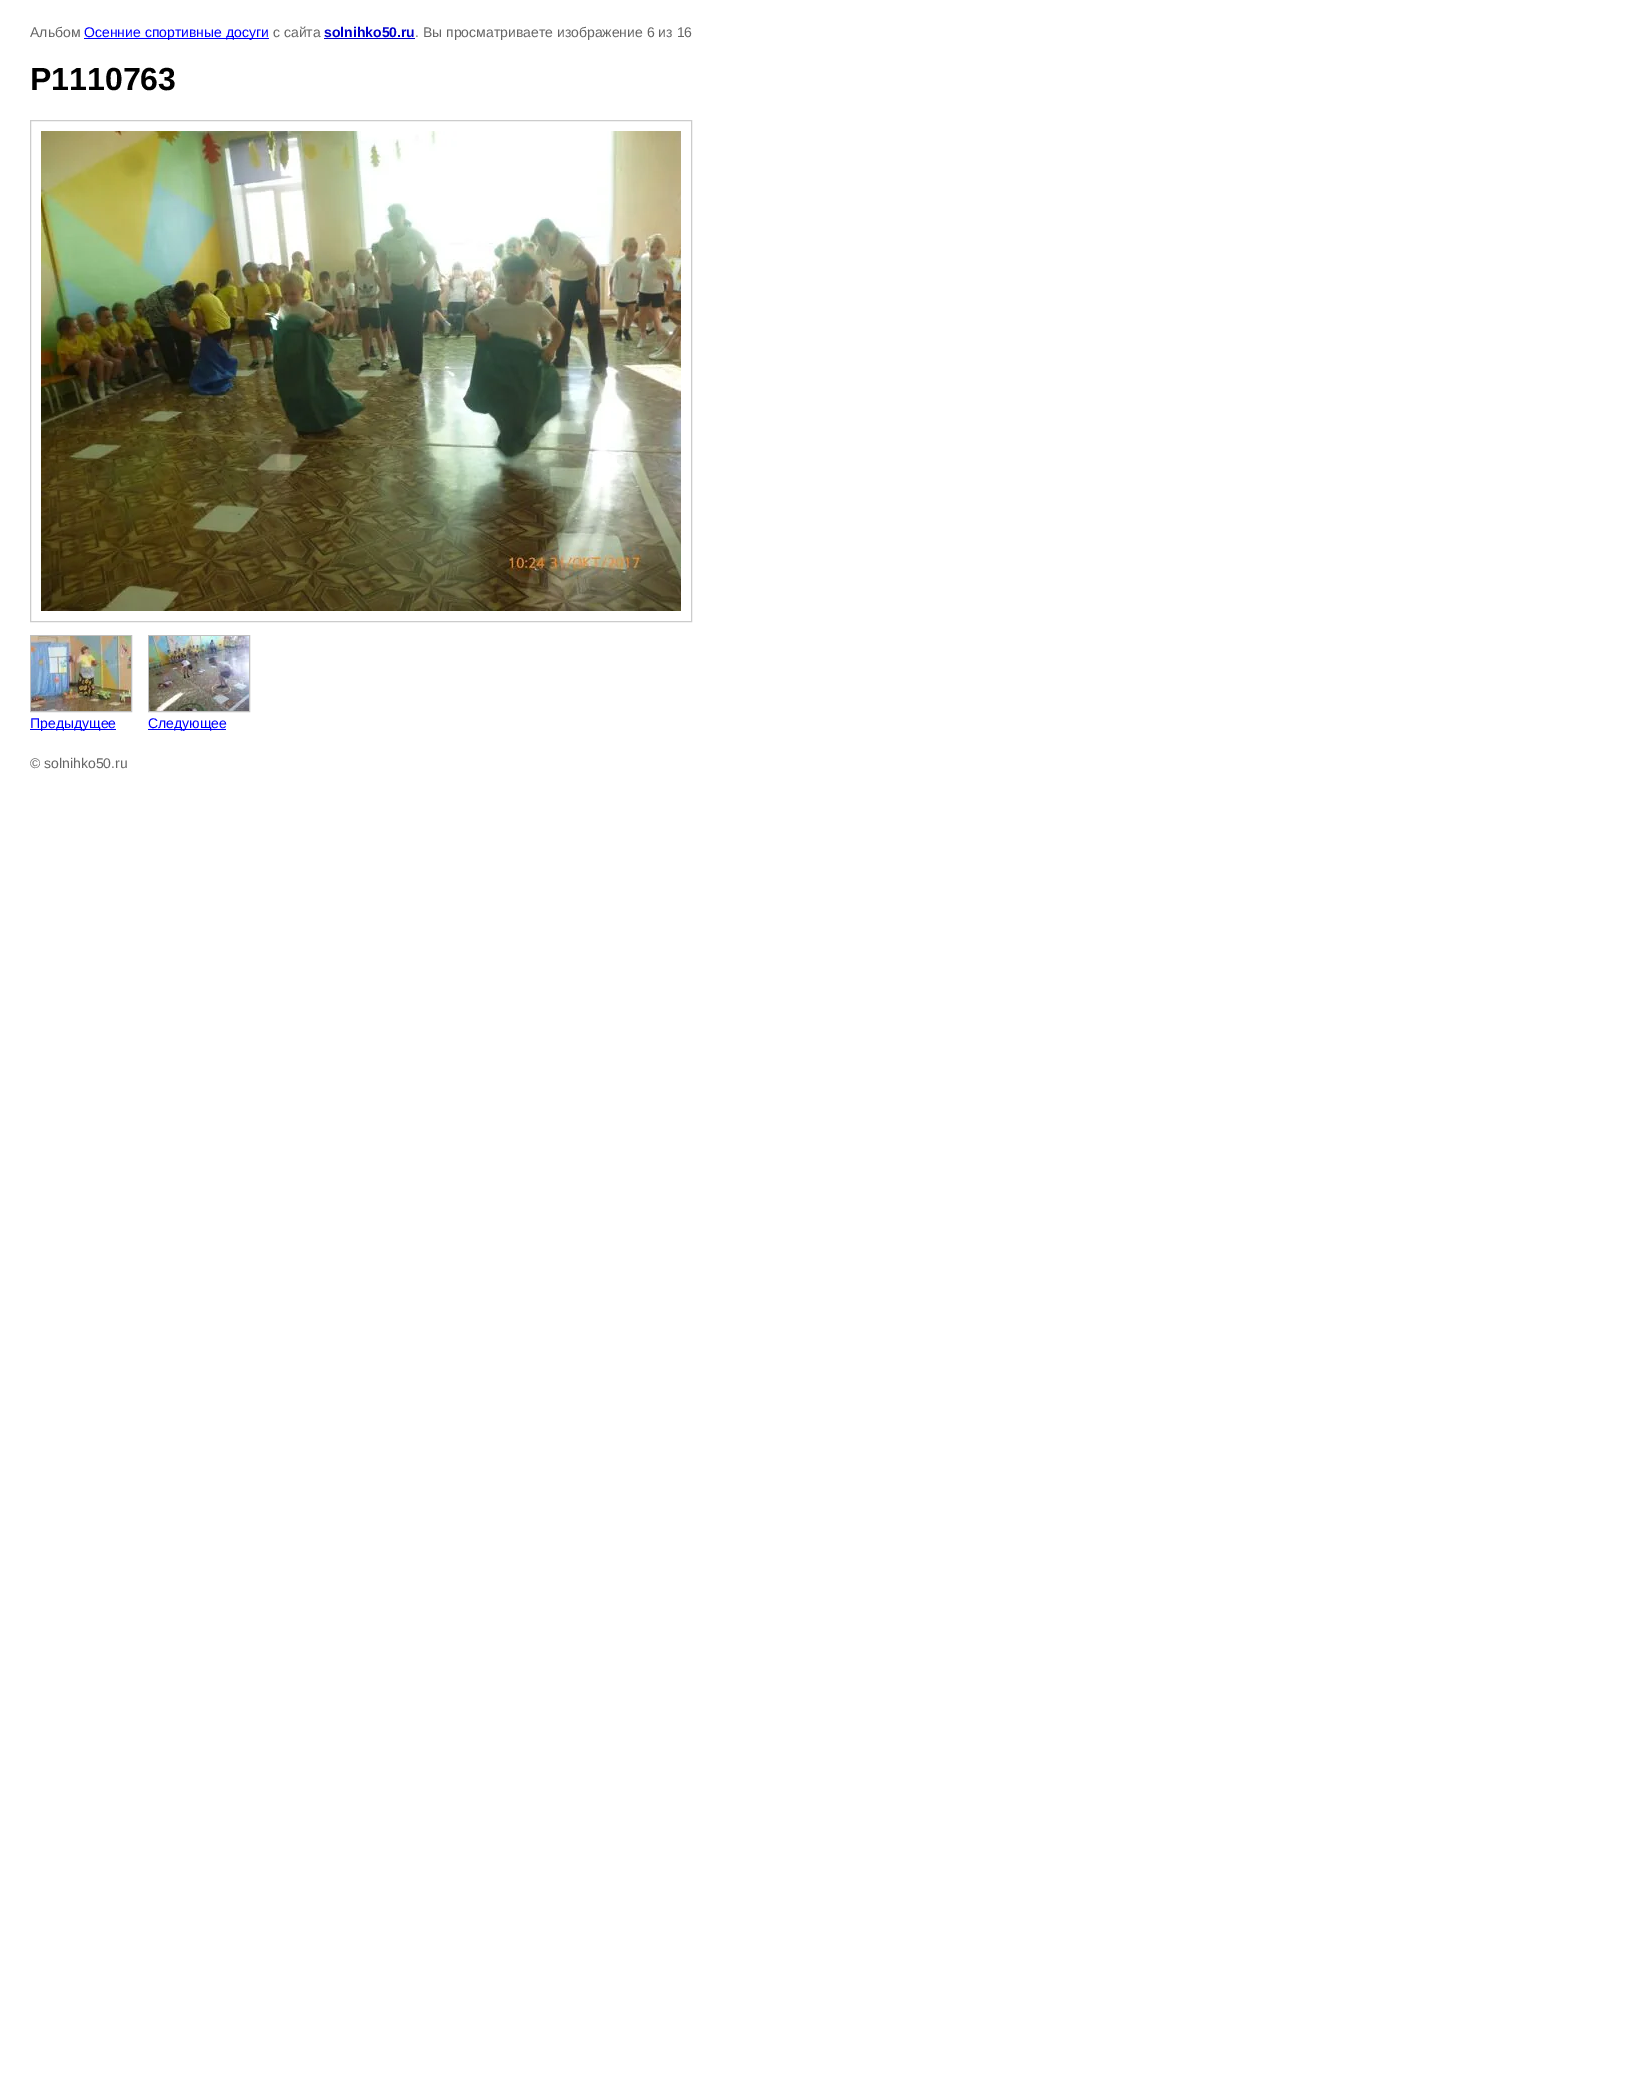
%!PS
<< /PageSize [1649 2085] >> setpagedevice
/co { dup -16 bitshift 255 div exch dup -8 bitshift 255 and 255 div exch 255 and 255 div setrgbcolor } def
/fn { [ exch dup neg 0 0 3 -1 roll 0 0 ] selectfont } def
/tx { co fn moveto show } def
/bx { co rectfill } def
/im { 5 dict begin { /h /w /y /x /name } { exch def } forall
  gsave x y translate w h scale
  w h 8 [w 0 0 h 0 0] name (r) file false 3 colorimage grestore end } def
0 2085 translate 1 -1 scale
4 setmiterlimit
0 0 1649 2085 16#FFFFFF bx
84 38 185 1 16#0000FF bx
324 38 91 1 16#0000CC bx
16#CCCCCC co
30.5 120.5 661 501 rectstroke
(media/1.raw) 41 131 640 480 im
16#C0C0C0 co
30.5 635.5 101 76 rectstroke
(media/2.raw) 31 636 100 75 im
30 729 86 1 16#0000FF bx
16#C0C0C0 co
148.5 635.5 101 76 rectstroke
(media/3.raw) 149 636 100 75 im
148 729 78 1 16#0000FF bx
(Альбом) 30 37 /LiberationSans-Regular 14 16#666666 tx
(Осенние спортивные досуги) 84 37 /LiberationSans-Regular 14 16#0000FF tx
(с сайта) 273 37 /LiberationSans-Regular 14 16#666666 tx
(solnihko50.ru) 324 37 /LiberationSans-Bold 14 16#0000CC tx
(. Вы просматриваете изображение 6 из 16) 415 37 /LiberationSans-Regular 14 16#666666 tx
(P1110763) 30 90 /LiberationSans-Bold 32 16#000000 tx
(Предыдущее) 30 728 /LiberationSans-Regular 14 16#0000FF tx
(Следующее) 148 728 /LiberationSans-Regular 14 16#0000FF tx
(© solnihko50.ru) 30 768 /LiberationSans-Regular 14 16#666666 tx
showpage
